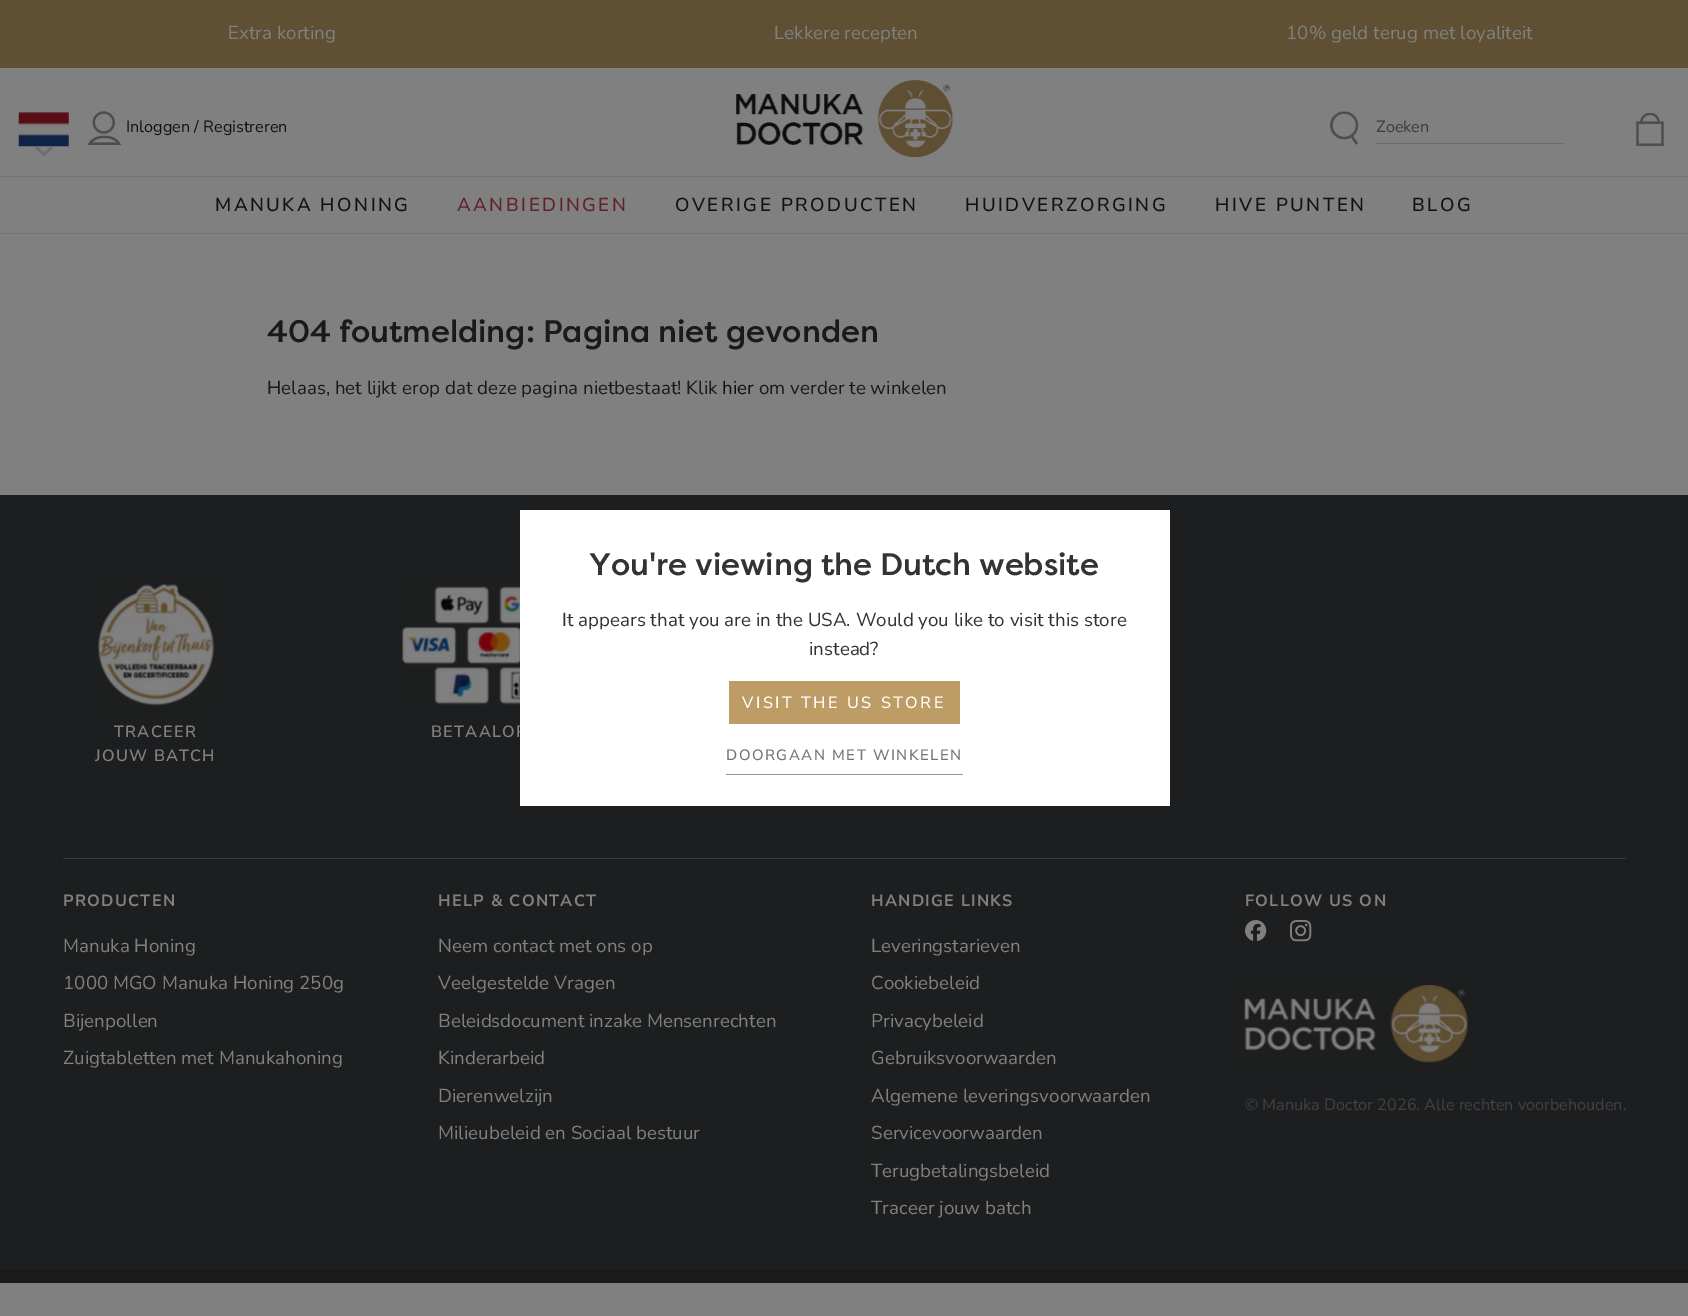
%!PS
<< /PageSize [1688 1316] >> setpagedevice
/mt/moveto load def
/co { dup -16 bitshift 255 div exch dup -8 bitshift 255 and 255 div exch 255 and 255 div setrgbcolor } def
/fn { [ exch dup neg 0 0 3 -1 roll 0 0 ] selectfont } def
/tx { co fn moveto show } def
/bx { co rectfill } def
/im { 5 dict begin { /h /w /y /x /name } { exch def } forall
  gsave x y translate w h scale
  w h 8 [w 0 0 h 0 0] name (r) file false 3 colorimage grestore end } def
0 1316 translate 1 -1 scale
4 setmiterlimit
0 0 1688 1316 16#808080 bx
0 0 1688 68 16#5F4F33 bx
(media/1.raw) 18 112 51 35 im
(media/2.raw) 35 146 18 11 im
(media/3.raw) 88 111 33 34 im
(media/4.raw) 736 80 218 78 im
(media/5.raw) 1330 111 29 34 im
1376 143 188 1 16#6B6B6B bx
(media/6.raw) 1636 113 28 33 im
0 176 1688 1 16#747474 bx
0 233 1688 1 16#747474 bx
0 495 1688 775 16#1D1E1F bx
0 1270 1688 13 16#1A1A1A bx
(media/7.raw) 98 583 117 123 im
(media/8.raw) 401 586 119 119 im
63 858 1563 1 16#3A3A3A bx
(media/9.raw) 1245 920 22 22 im
(media/10.raw) 1290 920 22 22 im
(media/11.raw) 1244 985 224 78 im
(Extra korting) 228 39 /NunitoSans-Regular 18.75 16#808080 tx
(Lekkere recepten) 774 39 /NunitoSans-Regular 18.75 16#808080 tx
(10% geld terug met loyaliteit) 1286 39 /NunitoSans-Regular 18.75 16#808080 tx
(Inloggen / Registreren) 126 132 /NunitoSans-Regular 16.25 16#111111 tx
(Zoeken) 1376 132 /NunitoSans-Regular 16.25 16#3B3B3B tx
/NunitoSans-Medium 18.75 fn
16#111111 co
215 211 mt 2.5 0 (MANUKA HONING) ashow
16#61222C co
457 211 mt 2.5 0 (AANBIEDINGEN) ashow
16#111111 co
675 211 mt 2.5 0 (OVERIGE PRODUCTEN) ashow
965 211 mt 2.5 0 (HUIDVERZORGING) ashow
1215 211 mt 2.5 0 (HIVE PUNTEN) ashow
1412 211 mt 2.5 0 (BLOG) ashow
(404 foutmelding: Pagina niet gevonden) 267 342 /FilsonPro-Medium 31.1 16#1A1A1A tx
(Helaas, het lijkt erop dat deze pagina nietbestaat! Klik) 267 394 /NunitoSans-Regular 18.75 16#1A1A1A tx
(hier) 722 394 /NunitoSans-Regular 18.75 16#111111 tx
(om verder te winkelen) 759 394 /NunitoSans-Regular 18.75 16#1A1A1A tx
/NunitoSans-SemiBold 16.25 fn
16#808080 co
114 737 mt 1.25 0 (TRACEER) ashow
95 761 mt 1.25 0 (JOUW BATCH) ashow
431 737 mt 1.25 0 (BETAALOP) ashow
520 510 650 296 16#FFFFFF bx
/NunitoSans-Medium 15 fn
16#737373 co
726 760 mt 1.5 0 (DOORGAAN MET WINKELEN) ashow
726 774 237 1 16#979797 bx
729 681 231 43 16#BD9D65 bx
/NunitoSans-Medium 16.25 fn
16#FFFFFF co
742 708 mt 2.5 0 (VISIT THE US STORE) ashow
(instead?) 809 655 /NunitoSans-Regular 18.75 16#333333 tx
(It appears that you are in the USA. Would you like to visit this store) 562 626 /NunitoSans-Regular 18.75 16#333333 tx
(You're viewing the Dutch website) 589 575 /FilsonPro-Medium 31.1 16#333333 tx
/NunitoSans-Bold 16.25 fn
16#808080 co
63 906 mt 1.25 0 (PRODUCTEN) ashow
(Manuka Honing) 63 952 /NunitoSans-Regular 18.75 16#808080 tx
(1000 MGO Manuka Honing 250g) 63 989 /NunitoSans-Regular 18.75 16#808080 tx
(Bijenpollen) 63 1027 /NunitoSans-Regular 18.75 16#808080 tx
(Zuigtabletten met Manukahoning) 63 1064 /NunitoSans-Regular 18.75 16#808080 tx
/NunitoSans-Bold 16.25 fn
438 906 mt 1.25 0 (HELP & CONTACT) ashow
(Neem contact met ons op) 438 952 /NunitoSans-Regular 18.75 16#808080 tx
(Veelgestelde Vragen) 438 989 /NunitoSans-Regular 18.75 16#808080 tx
(Beleidsdocument inzake Mensenrechten) 438 1027 /NunitoSans-Regular 18.75 16#808080 tx
(Kinderarbeid) 438 1064 /NunitoSans-Regular 18.75 16#808080 tx
(Dierenwelzijn) 438 1102 /NunitoSans-Regular 18.75 16#808080 tx
(Milieubeleid en Sociaal bestuur) 438 1139 /NunitoSans-Regular 18.75 16#808080 tx
/NunitoSans-Bold 16.25 fn
871 906 mt 1.25 0 (HANDIGE LINKS) ashow
(Leveringstarieven) 871 952 /NunitoSans-Regular 18.75 16#808080 tx
(Cookiebeleid) 871 989 /NunitoSans-Regular 18.75 16#808080 tx
(Privacybeleid) 871 1027 /NunitoSans-Regular 18.75 16#808080 tx
(Gebruiksvoorwaarden) 871 1064 /NunitoSans-Regular 18.75 16#808080 tx
(Algemene leveringsvoorwaarden) 871 1102 /NunitoSans-Regular 18.75 16#808080 tx
(Servicevoorwaarden) 871 1139 /NunitoSans-Regular 18.75 16#808080 tx
(Terugbetalingsbeleid) 871 1177 /NunitoSans-Regular 18.75 16#808080 tx
(Traceer jouw batch) 871 1214 /NunitoSans-Regular 18.75 16#808080 tx
/NunitoSans-Bold 16.25 fn
1245 906 mt 1.25 0 (FOLLOW US ON) ashow
(© Manuka Doctor 2026. Alle rechten voorbehouden.) 1245 1110 /NunitoSans-Regular 16.25 16#424243 tx
showpage
